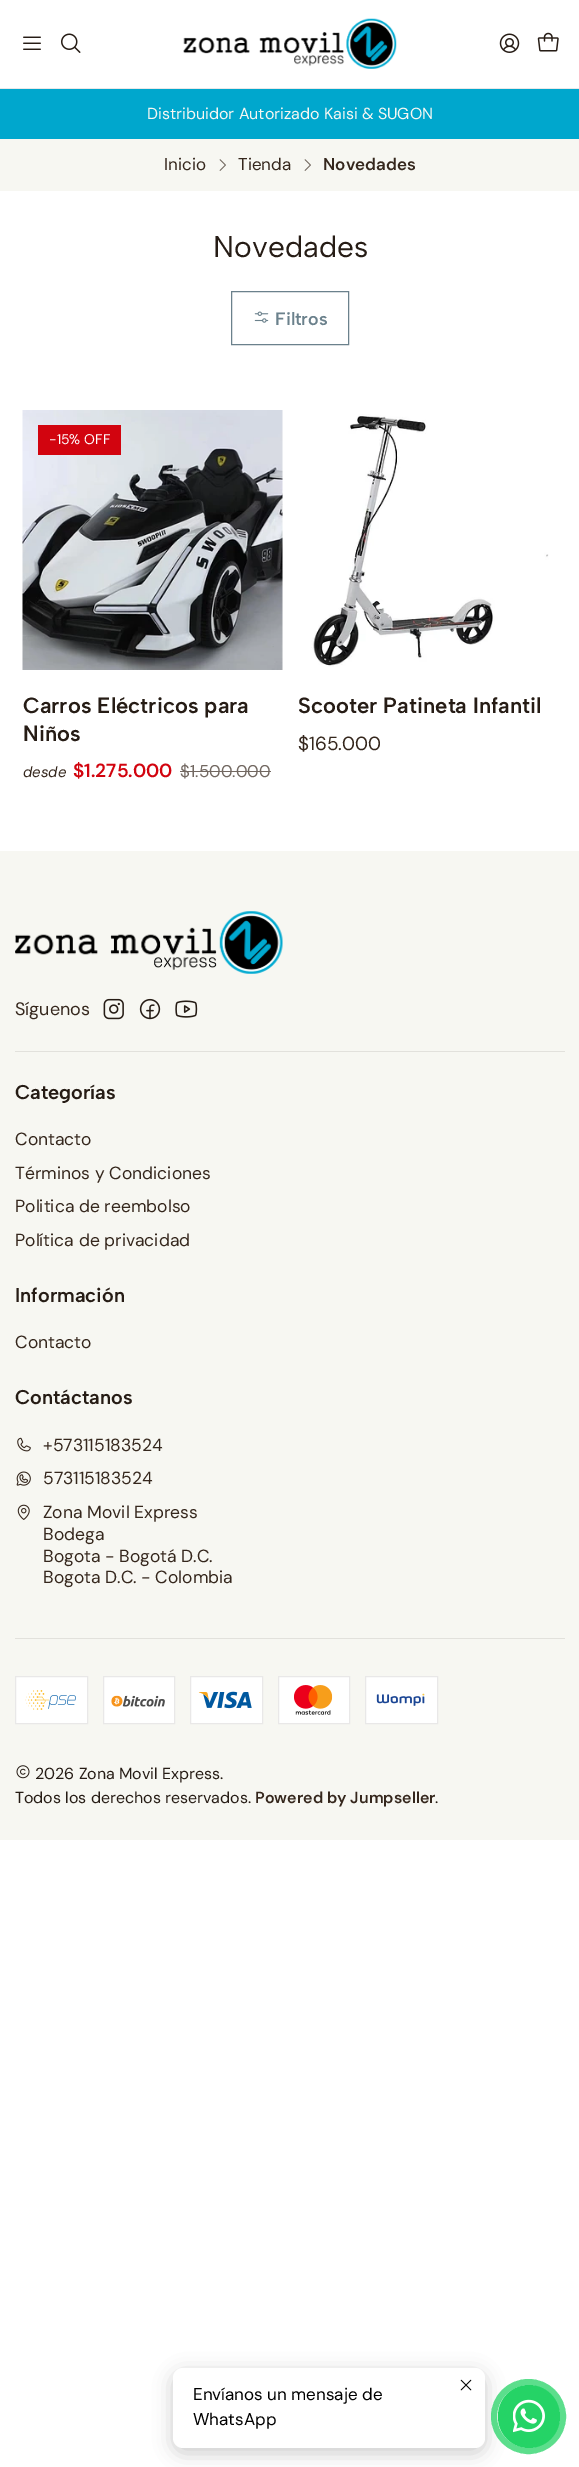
%!PS
<< /PageSize [579 2467] /PageUsesTransparency true >> setpagedevice
/mt/moveto load def
/li/lineto load def
/cp/closepath load def
/fl/fill load def
/st/stroke load def
/gs/gsave load def
/gr/grestore load def
/lw/setlinewidth load def
/co { dup -16 bitshift 255 div exch dup -8 bitshift 255 and 255 div exch 255 and 255 div setrgbcolor } def
/fn { [ exch dup neg 0 0 3 -1 roll 0 0 ] selectfont } def
/tx { co fn moveto show } def
/bx { co rectfill } def
/al { dup .setfillconstantalpha .setstrokeconstantalpha } def
/ci { newpath 0 360 arc closepath } def
/rr { 5 dict begin { /r /h /w /y /x } { exch def } forall
  x r add y moveto x w add y 2 copy h add r arct x w add y h add x 1 index r arct
  x y h add x y r arct x y 2 copy exch w add exch r arct closepath end } def
/sh { 12 dict begin { /a /b /q /h /w /y /x } { exch def } forall gsave /was 0 def
  9 -2 -9 { dup b mul 4 div /e exch def 1 sub .425 mul 2.718 exch exp 1 add a .99 .min exch div /now exch def
    1 1 now sub 1 was sub div sub al /was now def
    w h .min e 2 mul add 0 gt { x e sub y e sub w e 2 mul add h e 2 mul add
      q e add b .6 mul add w h .min 2 div e add .min 0 .max rr fill } if } for grestore end } def
/im { 5 dict begin { /h /w /y /x /name } { exch def } forall
  gsave x y translate w h scale
  w h 8 [w 0 0 h 0 0] name (r) file false 3 colorimage grestore end } def
0 .pushpdf14devicefilter
0 2467 translate 1 -1 scale
4 setmiterlimit
0 0 579 2467 16#FFFFFF bx
0 88 579 1 16#E9E8E8 bx
(media/1.raw) 23 36 18 14 im
(media/2.raw) 61 33 20 20 im
(media/3.raw) 183 18 214 51 im
(media/4.raw) 499 33 21 20 im
(media/5.raw) 537 32 22 20 im
0 89 579 50 16#00A7CD bx
0 139 579 52 16#F7F7F2 bx
(media/6.raw) 219 159 7 12 im
(media/6.raw) 304 159 7 12 im
16#6B818C co
231.5 291.5 117 53 rectstroke
(media/7.raw) 254 311 15 12 im
(media/8.raw) 22 410 261 260 im
38 425 83 30 16#D2040F bx
180 771 91 1 16#726861 bx
(media/9.raw) 311 414 238 253 im
0 851 579 989 16#F7F7F2 bx
(media/10.raw) 15 911 268 63 im
(media/11.raw) 103 998 21 22 im
(media/12.raw) 139 998 22 22 im
(media/13.raw) 175 1000 23 18 im
15 1051 550 1 16#E2E1DC bx
(media/14.raw) 17 1437 14 15 im
(media/15.raw) 16 1471 15 15 im
(media/16.raw) 17 1504 13 16 im
15 1638 550 1 16#E2E1DC bx
16#FFFFFF co
15.5 1676.5 mt 87.5 1676.5 li 87.5 1723.5 li 15.5 1723.5 li cp gs fl gr
16#E9E8E8 co
st
(media/17.raw) 25 1690 51 20 im
16#FFFFFF co
103.5 1676.5 mt 174.5 1676.5 li 174.5 1723.5 li 103.5 1723.5 li cp gs fl gr
16#E9E8E8 co
st
(media/18.raw) 111 1695 54 12 im
16#FFFFFF co
190.5 1676.5 mt 262.5 1676.5 li 262.5 1723.5 li 190.5 1723.5 li cp gs fl gr
16#E9E8E8 co
st
(media/19.raw) 198 1691 54 18 im
16#FFFFFF co
278.5 1676.5 mt 349.5 1676.5 li 349.5 1723.5 li 278.5 1723.5 li cp gs fl gr
16#E9E8E8 co
st
(media/20.raw) 294 1685 39 30 im
16#FFFFFF co
365.5 1676.5 mt 437.5 1676.5 li 437.5 1723.5 li 365.5 1723.5 li cp gs fl gr
16#E9E8E8 co
st
(media/21.raw) 376 1693 49 13 im
(media/22.raw) 16 1765 14 14 im
16#000000 co
173 2373 312 80 10 9.5 .2 sh
16#FFFFFF co
173 2368 312 80 10 rr fl
(media/23.raw) 460 2379 12 12 im
16#25D366 co
498 2385 62 63 31 rr fl
(media/24.raw) 513 2399 32 34 im
0.75 al
6 lw
528.5 2416.5 34.5 ci st
1 al
(Distribuidor Autorizado Kaisi & SUGON) 147 119 /DMSans-Regular 16 16#F7F7F2 tx
(Inicio) 164 170 /DMSans-Regular 17 16#35271D tx
(Tienda) 238 170 /DMSans-Regular 17 16#35271D tx
(Novedades) 323 170 /DMSans-SemiBold 17 16#35271D tx
(Novedades) 213 257 /AlbertSans-Regular 30 16#261C15 tx
(Filtros) 275 325 /AlbertSans-SemiBold 18 16#6B818C tx
(-15% OFF) 49 444 /DMSans-Regular 14 16#FFFFFF tx
(Carros Eléctricos para) 23 713 /AlbertSans-SemiBold 22 16#261C15 tx
(Niños) 23 741 /AlbertSans-SemiBold 22 16#261C15 tx
(desde) 23 777 /DMSans-Italic 15 16#35271D tx
($1.275.000) 73 777 /DMSans-SemiBold 19 16#D2040F tx
($1.500.000) 180 777 /DMSans-Regular 17 16#726861 tx
(Scooter Patineta Infantil) 298 713 /AlbertSans-SemiBold 22 16#261C15 tx
($165.000) 298 750 /DMSans-Regular 19 16#35271D tx
(Síguenos) 15 1015 /DMSans-Regular 18 16#35271D tx
(Categorías) 15 1099 /AlbertSans-SemiBold 20 16#261C15 tx
(Contacto) 15 1145 /DMSans-Regular 17.5 16#35271D tx
(Términos y Condiciones) 15 1179 /DMSans-Regular 17.5 16#35271D tx
(Politica de reembolso) 15 1212 /DMSans-Regular 17.5 16#35271D tx
(Política de privacidad) 15 1246 /DMSans-Regular 17.5 16#35271D tx
(Información) 15 1302 /AlbertSans-SemiBold 20 16#261C15 tx
(Contacto) 15 1348 /DMSans-Regular 17.5 16#35271D tx
(Contáctanos) 15 1404 /AlbertSans-SemiBold 20 16#261C15 tx
(+573115183524) 43 1451 /DMSans-Regular 17.5 16#35271D tx
(573115183524) 43 1484 /DMSans-Regular 17.5 16#35271D tx
(Zona Movil Express) 43 1518 /DMSans-Regular 17.5 16#35271D tx
(Bodega) 43 1540 /DMSans-Regular 17.5 16#35271D tx
(Bogota - Bogotá D.C.) 43 1562 /DMSans-Regular 17.5 16#35271D tx
(Bogota D.C. - Colombia) 43 1583 /DMSans-Regular 17.5 16#35271D tx
(2026 Zona Movil Express.) 35 1779 /DMSans-Regular 16 16#261C15 tx
(Todos los derechos reservados.) 15 1803 /DMSans-Regular 16 16#261C15 tx
(Powered by Jumpseller) 255 1803 /DMSans-SemiBold 16 16#35271D tx
(.) 435 1803 /DMSans-Regular 16 16#261C15 tx
(Envíanos un mensaje de) 193 2400 /DMSans-Regular 17 16#000000 tx
(WhatsApp) 193 2425 /DMSans-Regular 17 16#000000 tx
.poppdf14devicefilter showpage
